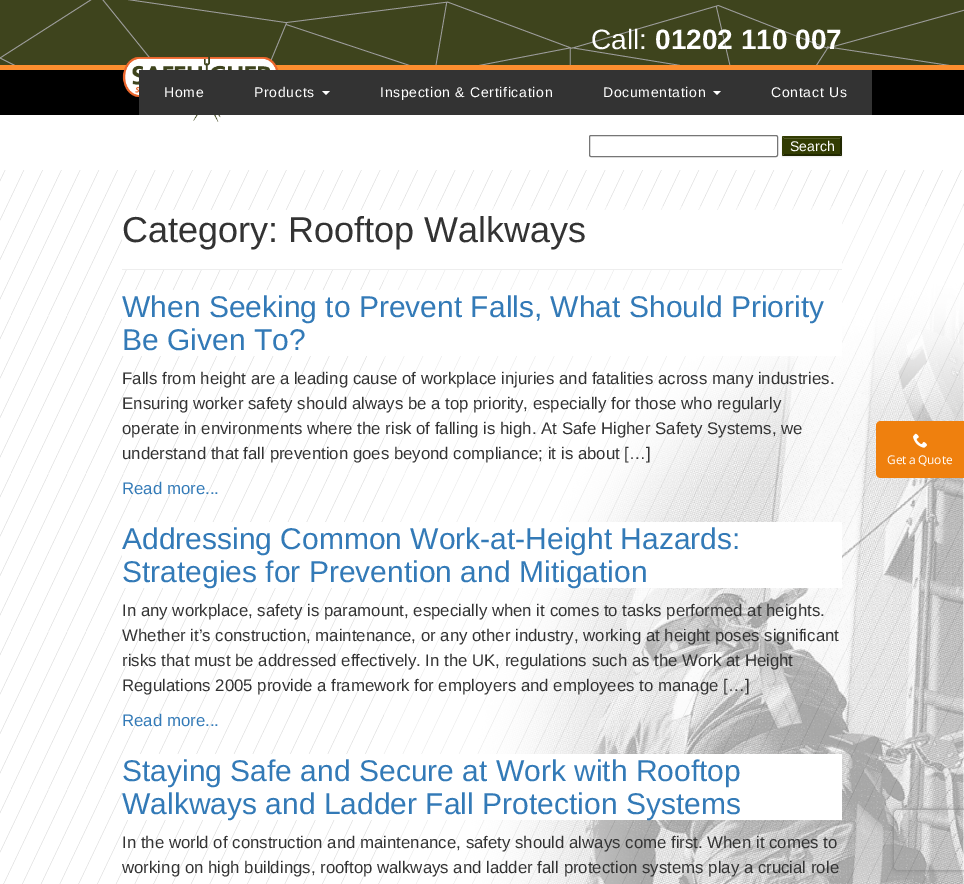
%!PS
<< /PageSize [964 884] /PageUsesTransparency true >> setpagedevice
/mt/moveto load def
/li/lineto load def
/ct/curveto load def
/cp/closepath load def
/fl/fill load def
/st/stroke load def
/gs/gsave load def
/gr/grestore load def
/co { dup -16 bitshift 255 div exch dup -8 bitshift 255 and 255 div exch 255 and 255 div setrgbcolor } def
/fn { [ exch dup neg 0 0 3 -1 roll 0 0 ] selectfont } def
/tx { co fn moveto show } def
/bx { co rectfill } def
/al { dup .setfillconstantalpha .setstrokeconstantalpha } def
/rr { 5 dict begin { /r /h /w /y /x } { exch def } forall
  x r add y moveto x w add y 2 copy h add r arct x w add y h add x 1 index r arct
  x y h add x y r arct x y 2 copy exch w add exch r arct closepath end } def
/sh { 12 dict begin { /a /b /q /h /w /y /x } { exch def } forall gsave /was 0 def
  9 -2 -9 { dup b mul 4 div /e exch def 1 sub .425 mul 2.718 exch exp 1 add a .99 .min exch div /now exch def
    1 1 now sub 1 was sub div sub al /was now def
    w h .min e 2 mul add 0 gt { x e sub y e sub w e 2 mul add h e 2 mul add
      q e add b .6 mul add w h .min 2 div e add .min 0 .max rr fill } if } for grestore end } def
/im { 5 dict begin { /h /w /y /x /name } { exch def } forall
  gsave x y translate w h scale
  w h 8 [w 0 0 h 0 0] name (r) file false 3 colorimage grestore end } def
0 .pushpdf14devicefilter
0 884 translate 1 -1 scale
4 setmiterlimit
0 0 964 884 16#FFFFFF bx
(media/1.raw) 0 170 964 714 im
(media/2.raw) 0 0 964 65 im
0 65 964 5 16#FC8E2F bx
0 70 964 45 16#000000 bx
(media/3.raw) 122 57 157 65 im
139 70 733 45 16#333333 bx
16#FFFFFF co
322 91 mt 330 91 li 326 95 li cp fl
713 91 mt 721 91 li 717 95 li cp fl
16#767676 co
589.5 135.5 188 21 1.5 rr st
16#000000 co
782 137 60 20 0 .5 .07 sh
784 139 56 15 16#323C02 bx
784 138 56 1 16#515928 bx
16#323C02 co
782 136 mt 842 136 li 840 138 li 784 138 li cp fl
16#212801 co
842 136 mt 842 156 li 840 154 li 840 138 li cp fl
842 156 mt 782 156 li 784 154 li 840 154 li cp fl
16#323C02 co
782 156 mt 782 136 li 784 138 li 784 154 li cp fl
(media/4.raw) 384 206 580 678 im
122 210 720 59 16#FFFFFF bx
122 269 720 1 16#EEEEEE bx
122 290 720 66 16#FFFFFF bx
122 522 720 66 16#FFFFFF bx
122 754 720 66 16#FFFFFF bx
16#EF800E co
881 421 mt 964 421 li 964 478 li 881 478 li 878 478 876 476 876 473 ct 876 426 li 876 423 878 421 881 421 ct cp fl
(media/5.raw) 913 433 14 15 im
gs
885 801 mt 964 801 li 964 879 li 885 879 li cp 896 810 mt 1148 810 li 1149 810 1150 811 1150 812 ct 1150 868 li 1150 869 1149 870 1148 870 ct 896 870 li 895 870 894 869 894 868 ct 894 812 li 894 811 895 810 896 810 ct cp eoclip newpath
16#808080 co
894 810 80 60 2 2.5 1 sh
gr
(Call:) 591 49 /LiberationSans-Regular 28 16#FFFFFF tx
(01202 110 007) 655 49 /LiberationSans-Bold 28 16#FFFFFF tx
/LiberationSans-Regular 14 fn
164 97 mt .7 0 (Home) ashow
254 97 mt .7 0 (Products) ashow
380 97 mt .7 0 (Inspection & Certification) ashow
603 97 mt .7 0 (Documentation) ashow
771 97 mt .7 0 (Contact Us) ashow
(Search) 790 151 /LiberationSans-Regular 14 16#FFFFFF tx
(Category: Rooftop Walkways) 122 242 /LiberationSans-Regular 36 16#333333 tx
(When Seeking to Prevent Falls, What Should Priority) 122 317 /LiberationSans-Regular 30 16#337AB7 tx
(Be Given To?) 122 350 /LiberationSans-Regular 30 16#337AB7 tx
(Falls from height are a leading cause of workplace injuries and fatalities across many industries.) 122 384 /LiberationSans-Regular 16.8 16#333333 tx
(Ensuring worker safety should always be a top priority, especially for those who regularly) 122 409 /LiberationSans-Regular 16.8 16#333333 tx
(operate in environments where the risk of falling is high. At Safe Higher Safety Systems, we) 122 434 /LiberationSans-Regular 16.8 16#333333 tx
(understand that fall prevention goes beyond compliance; it is about […]) 122 459 /LiberationSans-Regular 16.8 16#333333 tx
(Read more...) 122 494 /LiberationSans-Regular 16.8 16#337AB7 tx
(Addressing Common Work-at-Height Hazards:) 122 549 /LiberationSans-Regular 30 16#337AB7 tx
(Strategies for Prevention and Mitigation) 122 582 /LiberationSans-Regular 30 16#337AB7 tx
(In any workplace, safety is paramount, especially when it comes to tasks performed at heights.) 122 616 /LiberationSans-Regular 16.8 16#333333 tx
(Whether it’s construction, maintenance, or any other industry, working at height poses significant) 122 641 /LiberationSans-Regular 16.8 16#333333 tx
(risks that must be addressed effectively. In the UK, regulations such as the Work at Height) 122 666 /LiberationSans-Regular 16.8 16#333333 tx
(Regulations 2005 provide a framework for employers and employees to manage […]) 122 691 /LiberationSans-Regular 16.8 16#333333 tx
(Read more...) 122 726 /LiberationSans-Regular 16.8 16#337AB7 tx
(Staying Safe and Secure at Work with Rooftop) 122 781 /LiberationSans-Regular 30 16#337AB7 tx
(Walkways and Ladder Fall Protection Systems) 122 814 /LiberationSans-Regular 30 16#337AB7 tx
(In the world of construction and maintenance, safety should always come first. When it comes to) 122 848 /LiberationSans-Regular 16.8 16#333333 tx
(working on high buildings, rooftop walkways and ladder fall protection systems play a crucial role) 122 873 /LiberationSans-Regular 16.8 16#333333 tx
/OpenSans-Regular 12 fn
16#FFFFFF co
887 464 mt -1 0 32 (Get a Quote) widthshow
.poppdf14devicefilter showpage
